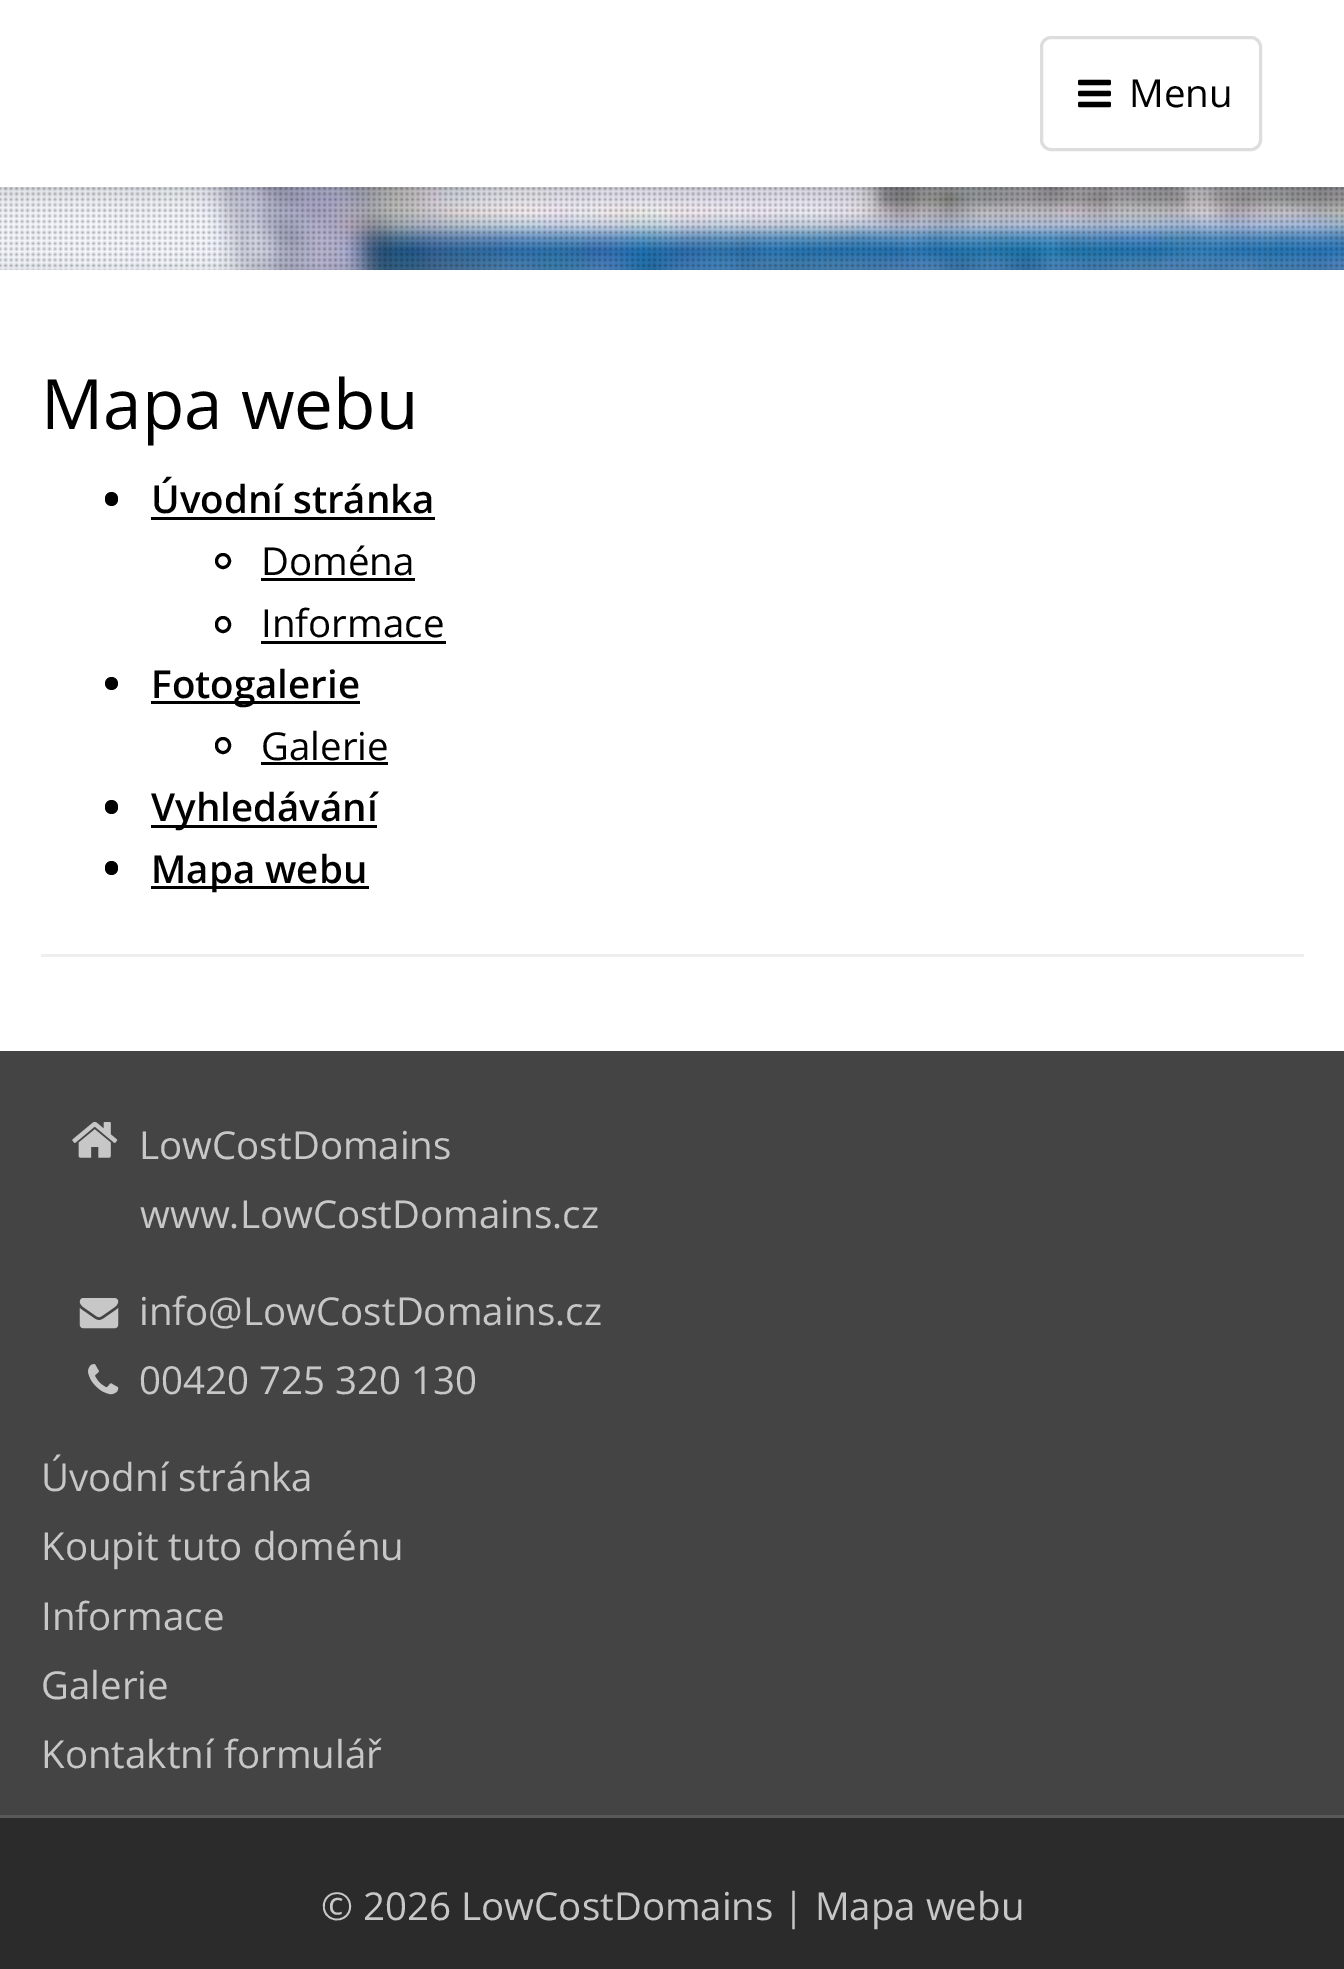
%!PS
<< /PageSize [1344 1969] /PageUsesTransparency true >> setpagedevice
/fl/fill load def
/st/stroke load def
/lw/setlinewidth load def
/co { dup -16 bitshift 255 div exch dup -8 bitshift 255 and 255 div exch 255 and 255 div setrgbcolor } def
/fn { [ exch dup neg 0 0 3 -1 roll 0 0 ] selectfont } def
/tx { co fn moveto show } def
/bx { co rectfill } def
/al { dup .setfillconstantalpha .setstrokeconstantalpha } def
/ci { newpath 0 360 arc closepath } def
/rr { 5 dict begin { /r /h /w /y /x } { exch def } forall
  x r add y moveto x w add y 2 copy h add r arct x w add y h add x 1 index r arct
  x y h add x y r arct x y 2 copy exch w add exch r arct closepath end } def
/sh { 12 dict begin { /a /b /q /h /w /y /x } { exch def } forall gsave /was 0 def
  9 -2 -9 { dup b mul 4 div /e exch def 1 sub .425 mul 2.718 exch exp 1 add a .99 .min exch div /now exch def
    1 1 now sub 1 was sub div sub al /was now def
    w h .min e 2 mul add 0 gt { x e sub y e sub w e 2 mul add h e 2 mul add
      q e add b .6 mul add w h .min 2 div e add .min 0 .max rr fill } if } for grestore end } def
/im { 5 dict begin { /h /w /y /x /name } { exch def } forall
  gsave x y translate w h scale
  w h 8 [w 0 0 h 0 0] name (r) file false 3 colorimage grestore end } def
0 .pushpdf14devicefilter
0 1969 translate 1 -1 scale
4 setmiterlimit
0 0 1344 1969 16#FFFFFF bx
(media/1.raw) 0 187 1344 83 im
(media/2.raw) 0 187 1344 83 im
16#000000 co
0 0 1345 187 0 14 .2 sh
0 0 1344 187 16#FFFFFF bx
16#DDDDDD co
3 lw
1041.5 37.5 219 112 9.5 rr st
(media/3.raw) 1078 79 33 29 im
16#000000 co
-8 270 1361 797 0 7 .1 sh
0 270 1344 781 16#FFFFFF bx
16#000000 co
105 492 13 14 6.5 rr fl
151 517 284 3 16#000000 bx
223 561 6.5 ci st
261 578 154 3 16#000000 bx
216.5 617.5 13 14 6.5 rr st
261 641 185 3 16#000000 bx
111.5 683.5 6.5 ci fl
151 701 209 3 16#000000 bx
216.5 738.5 13 14 6.5 rr st
261 762 127 3 16#000000 bx
105 800 13 14 6.5 rr fl
151 825 226 3 16#000000 bx
105 861 13 14 6.5 rr fl
151 886 218 3 16#000000 bx
41 954 1263 3 16#EEEEEE bx
0 1051 1344 764 16#444444 bx
(media/4.raw) 72 1121 46 37 im
(media/5.raw) 79 1298 40 31 im
(media/6.raw) 88 1364 31 31 im
0 1818 1344 151 16#2B2B2B bx
0 1815 1344 3 16#595959 bx
(Menu) 1129 107 /OpenSans-Regular 38.5 16#000000 tx
(Mapa webu) 41 429 /OpenSans-Regular 69.25 16#000000 tx
(Úvodní stránka) 151 513 /OpenSans-SemiBold 38.5 16#000000 tx
(Doména) 261 575 /OpenSans-Regular 38.5 16#000000 tx
(Informace) 261 637 /OpenSans-Regular 38.5 16#000000 tx
(Fotogalerie) 151 698 /OpenSans-SemiBold 38.5 16#000000 tx
(Galerie) 261 760 /OpenSans-Regular 38.5 16#000000 tx
(Vyhledávání) 151 821 /OpenSans-SemiBold 38.5 16#000000 tx
(Mapa webu) 151 883 /OpenSans-SemiBold 38.5 16#000000 tx
(LowCostDomains) 139 1159 /OpenSans-Regular 38.5 16#C7C7C7 tx
(www.LowCostDomains.cz) 140 1228 /OpenSans-Regular 38.5 16#C7C7C7 tx
(info@LowCostDomains.cz) 139 1325 /OpenSans-Regular 38.5 16#C7C7C7 tx
(00420 725 320 130) 139 1394 /OpenSans-Regular 38.5 16#C7C7C7 tx
(Úvodní stránka) 41 1491 /OpenSans-Regular 38.5 16#C7C7C7 tx
(Koupit tuto doménu) 41 1560 /OpenSans-Regular 38.5 16#C7C7C7 tx
(Informace) 41 1630 /OpenSans-Regular 38.5 16#C7C7C7 tx
(Galerie) 41 1699 /OpenSans-Regular 38.5 16#C7C7C7 tx
(Kontaktní formulář) 41 1768 /OpenSans-Regular 38.5 16#C7C7C7 tx
(© 2026 LowCostDomains | Mapa webu) 321 1920 /OpenSans-Regular 38.5 16#C7C7C7 tx
.poppdf14devicefilter showpage
